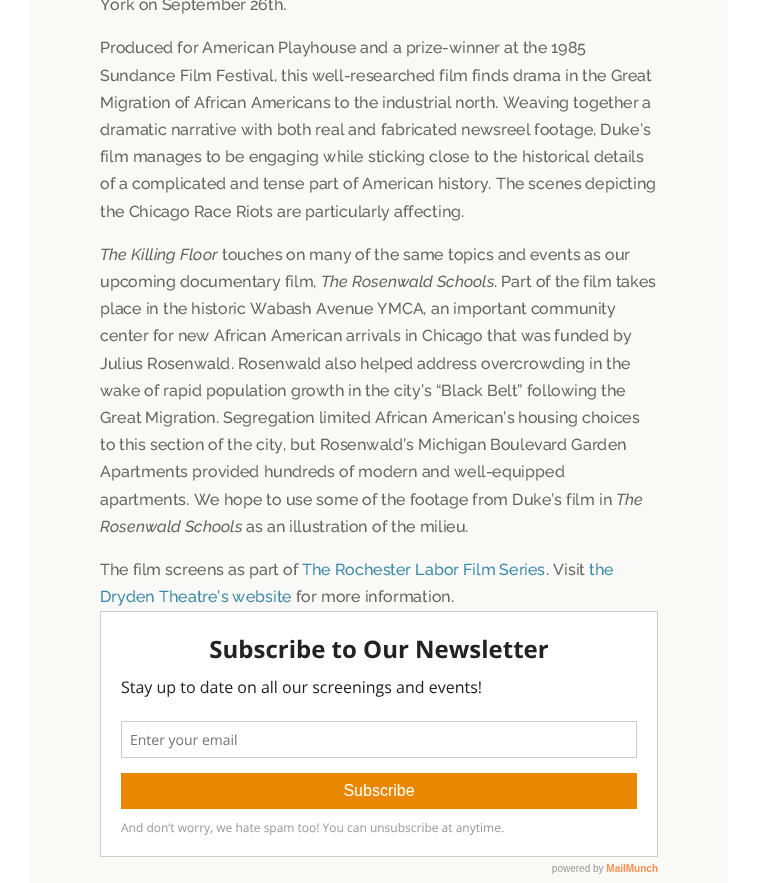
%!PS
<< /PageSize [758 883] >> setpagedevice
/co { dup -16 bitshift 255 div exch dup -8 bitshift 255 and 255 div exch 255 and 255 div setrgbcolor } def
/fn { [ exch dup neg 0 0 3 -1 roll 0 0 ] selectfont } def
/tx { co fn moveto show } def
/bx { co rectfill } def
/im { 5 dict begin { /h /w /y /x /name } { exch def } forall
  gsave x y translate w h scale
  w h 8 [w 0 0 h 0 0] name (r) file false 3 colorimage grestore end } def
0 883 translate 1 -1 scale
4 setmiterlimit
0 0 758 883 16#FFFFFF bx
30 0 698 883 16#F9F9F7 bx
(media/1.raw) 100 611 558 263 im
(York on September 26th.) 100 10 /Raleway-Medium 16 16#666666 tx
(Produced for American Playhouse and a prize-winner at the 1985) 100 53 /Raleway-Medium 16 16#666666 tx
(Sundance Film Festival, this well-researched film finds drama in the Great) 100 81 /Raleway-Medium 16 16#666666 tx
(Migration of African Americans to the industrial north. Weaving together a) 100 108 /Raleway-Medium 16 16#666666 tx
(dramatic narrative with both real and fabricated newsreel footage, Duke’s) 100 135 /Raleway-Medium 16 16#666666 tx
(film manages to be engaging while sticking close to the historical details) 100 162 /Raleway-Medium 16 16#666666 tx
(of a complicated and tense part of American history. The scenes depicting) 100 189 /Raleway-Medium 16 16#666666 tx
(the Chicago Race Riots are particularly affecting.) 100 217 /Raleway-Medium 16 16#666666 tx
(The Killing Floor) 100 260 /Raleway-MediumItalic 16 16#666666 tx
(touches on many of the same topics and events as our) 222 260 /Raleway-Medium 16 16#666666 tx
(upcoming documentary film,) 100 287 /Raleway-Medium 16 16#666666 tx
(The Rosenwald Schools) 321 287 /Raleway-MediumItalic 16 16#666666 tx
(. Part of the film takes) 494 287 /Raleway-Medium 16 16#666666 tx
(place in the historic Wabash Avenue YMCA, an important community) 100 314 /Raleway-Medium 16 16#666666 tx
(center for new African American arrivals in Chicago that was funded by) 100 341 /Raleway-Medium 16 16#666666 tx
(Julius Rosenwald. Rosenwald also helped address overcrowding in the) 100 369 /Raleway-Medium 16 16#666666 tx
(wake of rapid population growth in the city’s “Black Belt” following the) 100 396 /Raleway-Medium 16 16#666666 tx
(Great Migration. Segregation limited African American’s housing choices) 100 423 /Raleway-Medium 16 16#666666 tx
(to this section of the city, but Rosenwald’s Michigan Boulevard Garden) 100 450 /Raleway-Medium 16 16#666666 tx
(Apartments provided hundreds of modern and well-equipped) 100 477 /Raleway-Medium 16 16#666666 tx
(apartments. We hope to use some of the footage from Duke’s film in) 100 505 /Raleway-Medium 16 16#666666 tx
(The) 616 505 /Raleway-MediumItalic 16 16#666666 tx
(Rosenwald Schools) 100 532 /Raleway-MediumItalic 16 16#666666 tx
(as an illustration of the milieu.) 246 532 /Raleway-Medium 16 16#666666 tx
(The film screens as part of) 100 575 /Raleway-Medium 16 16#666666 tx
(The Rochester Labor Film Series) 302 575 /Raleway-Medium 16 16#3E8BA7 tx
(. Visit) 546 575 /Raleway-Medium 16 16#666666 tx
(the) 589 575 /Raleway-Medium 16 16#3E8BA7 tx
(Dryden Theatre’s website) 100 602 /Raleway-Medium 16 16#3E8BA7 tx
(for more information.) 296 602 /Raleway-Medium 16 16#666666 tx
showpage
